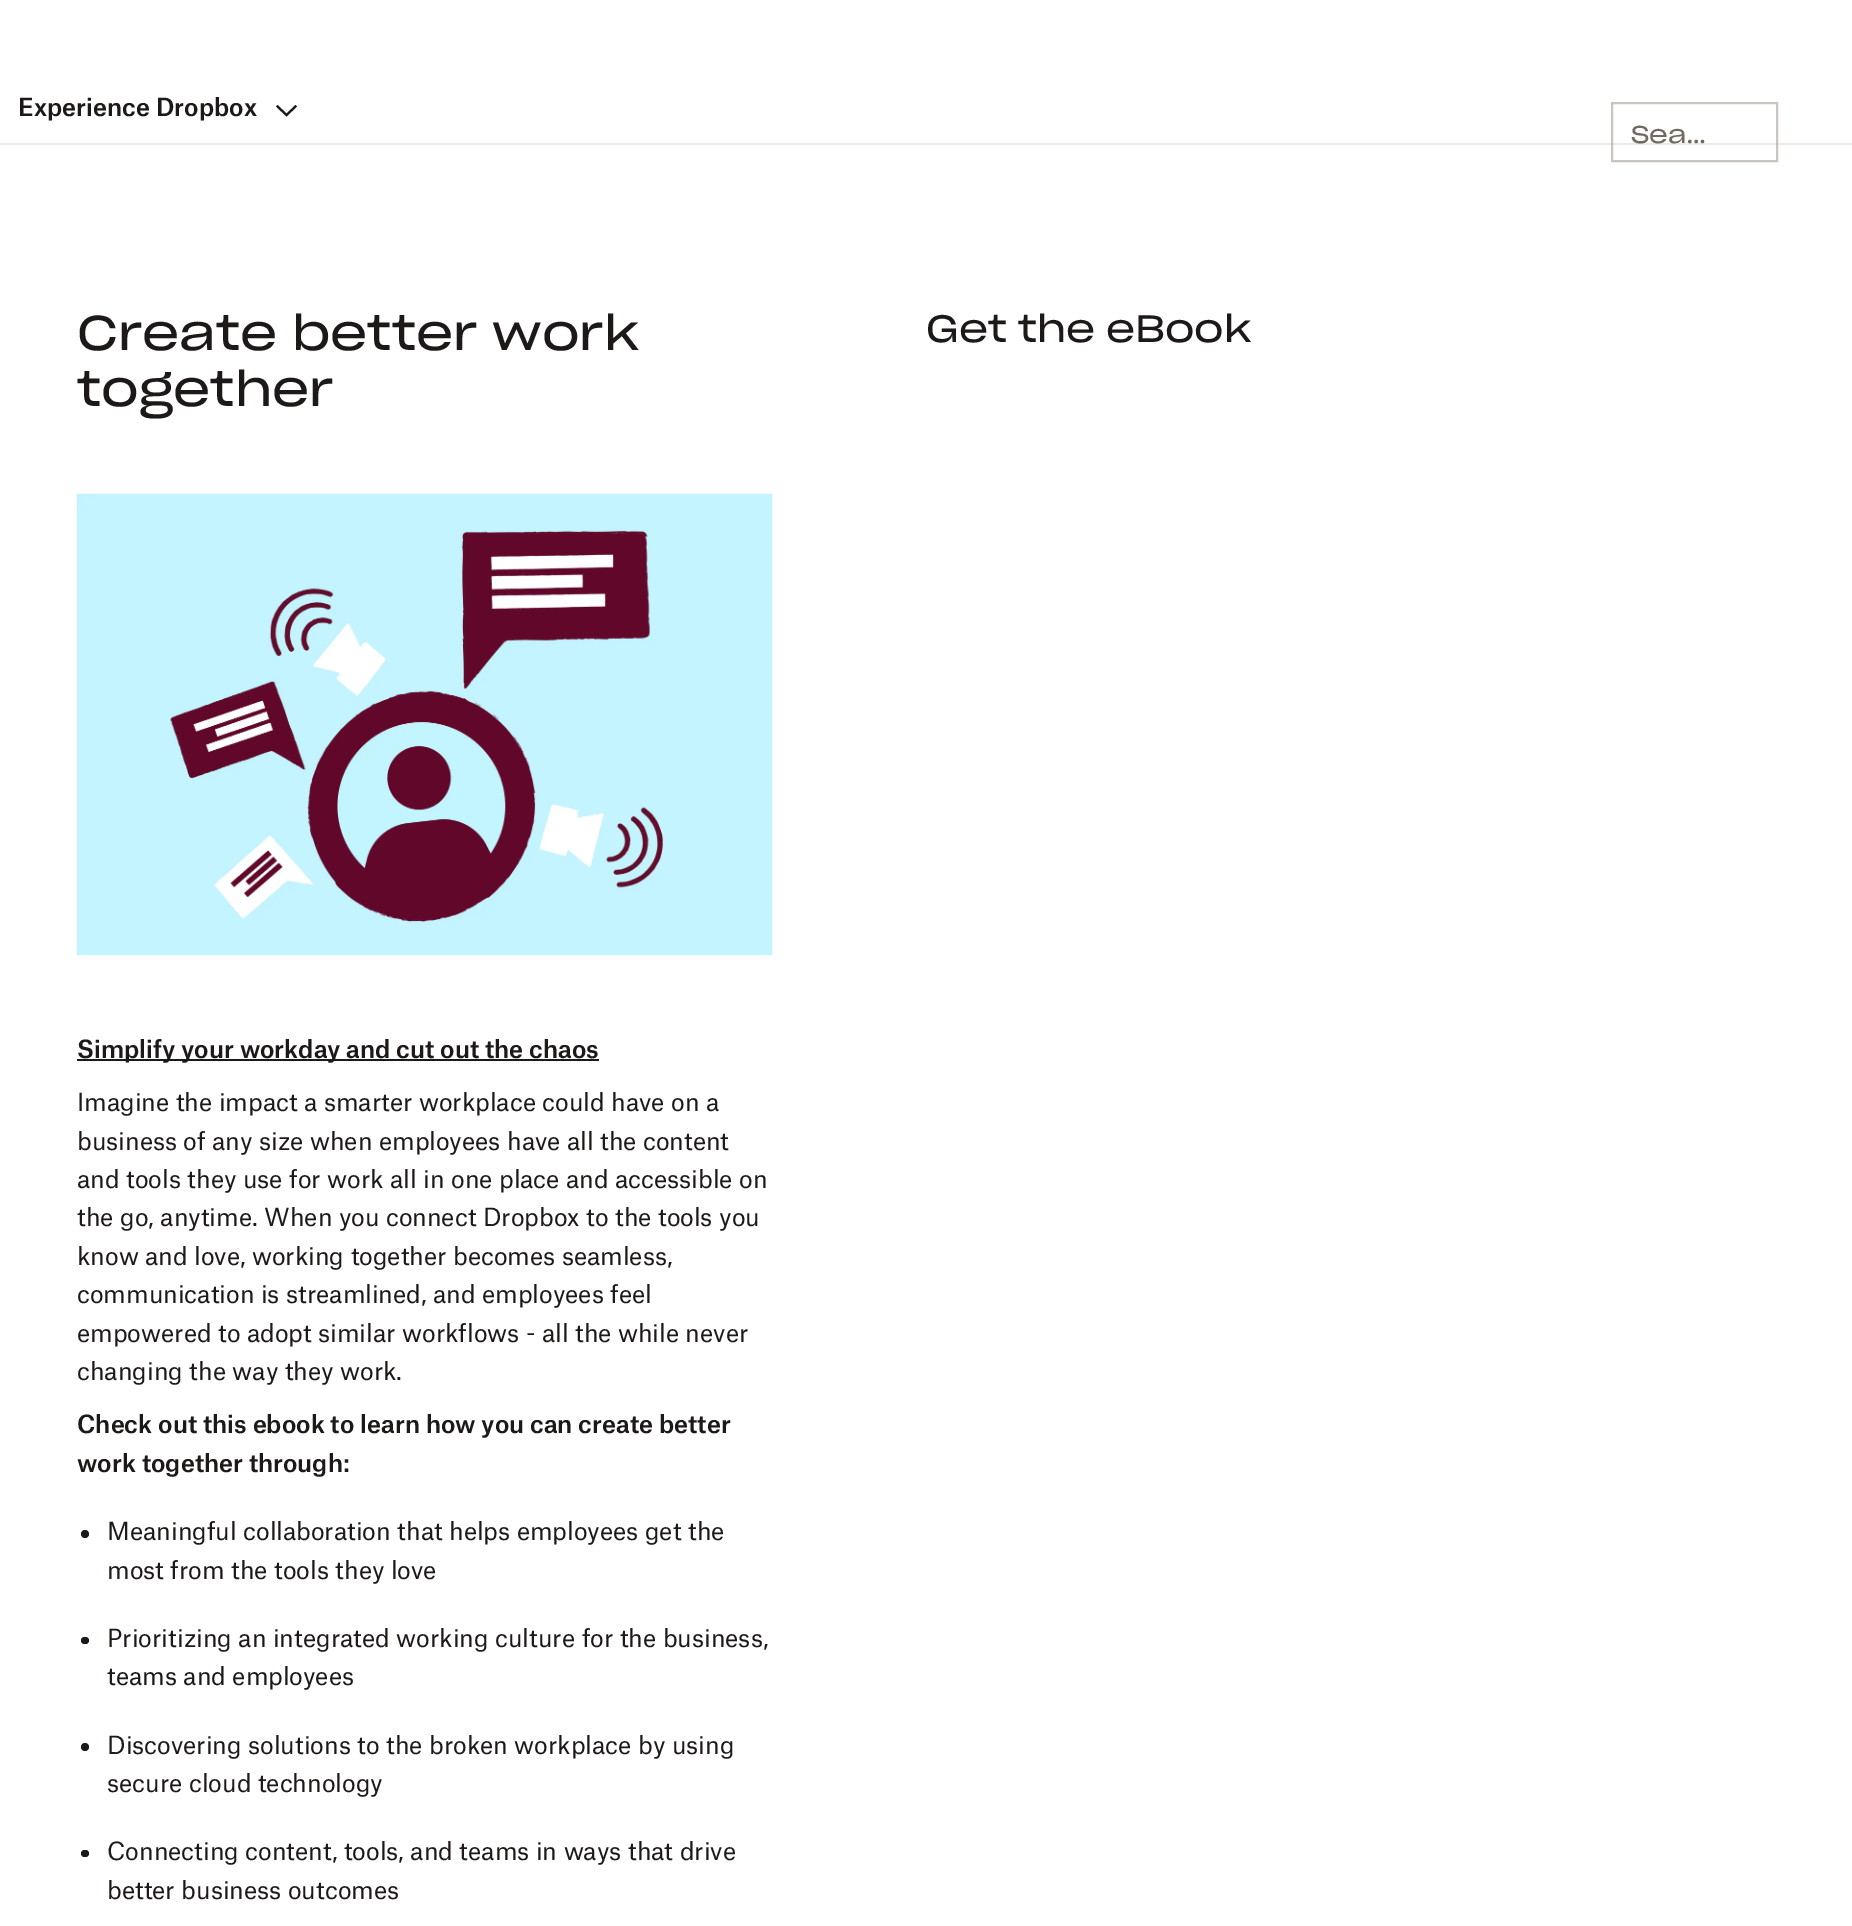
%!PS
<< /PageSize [1852 1926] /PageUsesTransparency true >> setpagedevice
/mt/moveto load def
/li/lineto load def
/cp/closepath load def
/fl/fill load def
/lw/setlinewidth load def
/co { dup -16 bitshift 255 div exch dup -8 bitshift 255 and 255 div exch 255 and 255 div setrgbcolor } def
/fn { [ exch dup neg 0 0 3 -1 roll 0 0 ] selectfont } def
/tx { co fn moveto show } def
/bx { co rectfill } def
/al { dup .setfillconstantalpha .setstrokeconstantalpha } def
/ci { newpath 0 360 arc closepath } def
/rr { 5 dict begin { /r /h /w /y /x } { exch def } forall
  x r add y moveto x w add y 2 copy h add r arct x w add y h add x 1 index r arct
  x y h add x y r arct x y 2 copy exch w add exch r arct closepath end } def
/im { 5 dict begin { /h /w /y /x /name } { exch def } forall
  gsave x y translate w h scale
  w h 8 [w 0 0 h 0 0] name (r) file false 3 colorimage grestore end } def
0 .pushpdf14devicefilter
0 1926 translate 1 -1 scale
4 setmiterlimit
0 0 1852 1926 16#FFFFFF bx
0 143 1852 2 16#EDE9E3 bx
16#1E1919 co
276 106.5 mt 277.5 105 li 286.5 113.5 li 295.5 105 li 297 106.5 li 286.5 116.5 li cp eofill
0.6 al
16#A69E92 co
2 lw
1612 103 165 58 rectstroke
1 al
(media/1.raw) 76 493 697 463 im
77 1059 522 2 16#1E1919 bx
85 1534 4 ci fl
81 1637 8 7 3.5 rr fl
85 1747 4 ci fl
81 1850 8 7 3.5 rr fl
(Experience Dropbox) 18 116 /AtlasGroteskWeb-Medium 24 16#1E1919 tx
(Sea…) 1631 143 /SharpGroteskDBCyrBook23-Regular 24 16#716A60 tx
(Create better work) 77 350 /SharpGroteskDBCyrBook23-Regular 48 16#1E1919 tx
(together) 77 406 /SharpGroteskDBCyrBook23-Regular 48 16#1E1919 tx
(Simplify your workday and cut out the chaos) 77 1058 /AtlasGroteskWeb-Medium 24 16#1E1919 tx
(Imagine the impact a smarter workplace could have on a) 77 1111 /AtlasGroteskWeb-Regular 24 16#1E1919 tx
(business of any size when employees have all the content) 77 1150 /AtlasGroteskWeb-Regular 24 16#1E1919 tx
(and tools they use for work all in one place and accessible on) 77 1188 /AtlasGroteskWeb-Regular 24 16#1E1919 tx
(the go, anytime. When you connect Dropbox to the tools you) 77 1226 /AtlasGroteskWeb-Regular 24 16#1E1919 tx
(know and love, working together becomes seamless,) 77 1265 /AtlasGroteskWeb-Regular 24 16#1E1919 tx
(communication is streamlined, and employees feel) 77 1303 /AtlasGroteskWeb-Regular 24 16#1E1919 tx
(empowered to adopt similar workflows - all the while never) 77 1342 /AtlasGroteskWeb-Regular 24 16#1E1919 tx
(changing the way they work.) 77 1380 /AtlasGroteskWeb-Regular 24 16#1E1919 tx
(Check out this ebook to learn how you can create better) 77 1433 /AtlasGroteskWeb-Medium 24 16#1E1919 tx
(work together through:) 77 1472 /AtlasGroteskWeb-Medium 24 16#1E1919 tx
(Meaningful collaboration that helps employees get the) 107 1540 /AtlasGroteskWeb-Regular 24 16#1E1919 tx
(most from the tools they love) 107 1579 /AtlasGroteskWeb-Regular 24 16#1E1919 tx
(Prioritizing an integrated working culture for the business,) 107 1647 /AtlasGroteskWeb-Regular 24 16#1E1919 tx
(teams and employees) 107 1685 /AtlasGroteskWeb-Regular 24 16#1E1919 tx
(Discovering solutions to the broken workplace by using) 107 1754 /AtlasGroteskWeb-Regular 24 16#1E1919 tx
(secure cloud technology) 107 1792 /AtlasGroteskWeb-Regular 24 16#1E1919 tx
(Connecting content, tools, and teams in ways that drive) 107 1860 /AtlasGroteskWeb-Regular 24 16#1E1919 tx
(better business outcomes) 107 1899 /AtlasGroteskWeb-Regular 24 16#1E1919 tx
(Get the eBook) 926 342 /SharpGroteskDBCyrBook23-Regular 37.5 16#1E1919 tx
.poppdf14devicefilter showpage
